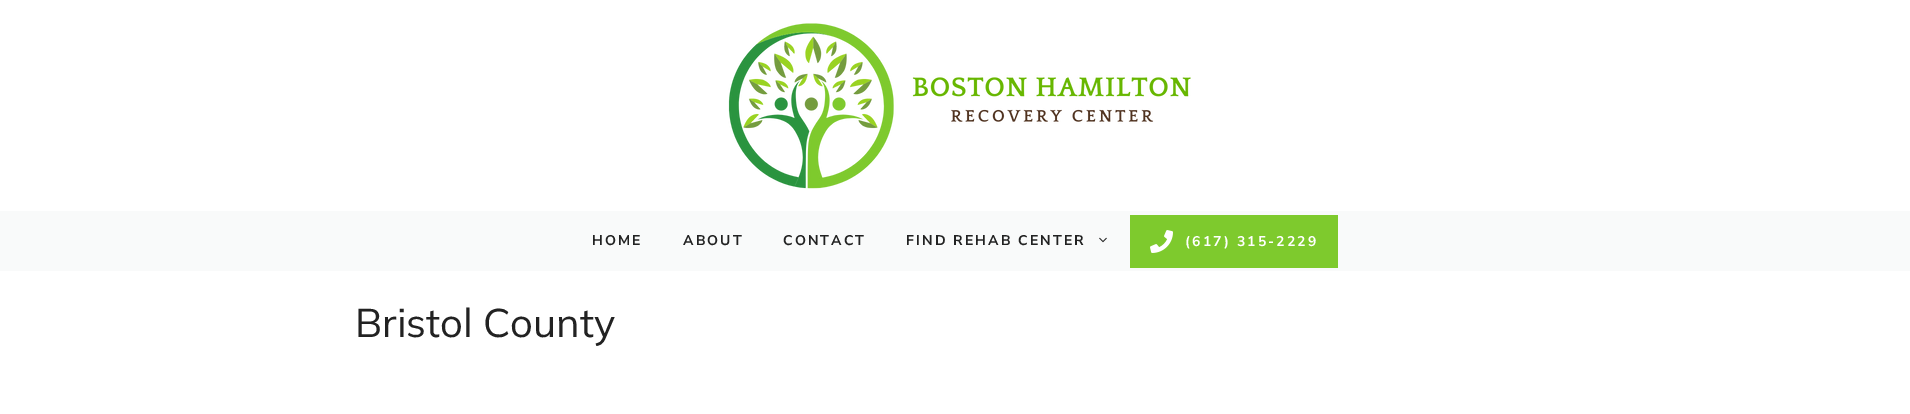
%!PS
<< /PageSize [1910 414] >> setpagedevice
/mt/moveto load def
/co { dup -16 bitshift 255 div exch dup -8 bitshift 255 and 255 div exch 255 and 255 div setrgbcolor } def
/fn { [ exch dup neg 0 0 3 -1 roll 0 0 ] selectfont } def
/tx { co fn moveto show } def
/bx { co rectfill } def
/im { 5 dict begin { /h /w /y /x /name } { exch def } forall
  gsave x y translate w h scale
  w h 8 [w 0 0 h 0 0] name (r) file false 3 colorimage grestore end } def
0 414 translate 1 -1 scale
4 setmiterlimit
0 0 1910 414 16#FFFFFF bx
(media/1.raw) 728 23 463 166 im
0 211 1910 60 16#F9FAFA bx
(media/2.raw) 1099 237 8 6 im
1130 215 208 53 16#7ECA2D bx
(media/3.raw) 1150 230 23 23 im
/NunitoSans-Bold 14 fn
16#222222 co
592 245 mt 2.1 0 (HOME) ashow
683 245 mt 2.1 0 (ABOUT) ashow
783 245 mt 2.1 0 (CONTACT) ashow
906 245 mt 2.1 0 (FIND REHAB CENTER) ashow
16#FFFFFF co
1185 246 mt 2.1 0 (\(617\) 315-2229) ashow
(Bristol County) 355 337 /Mulish-Regular 40 16#222222 tx
showpage
